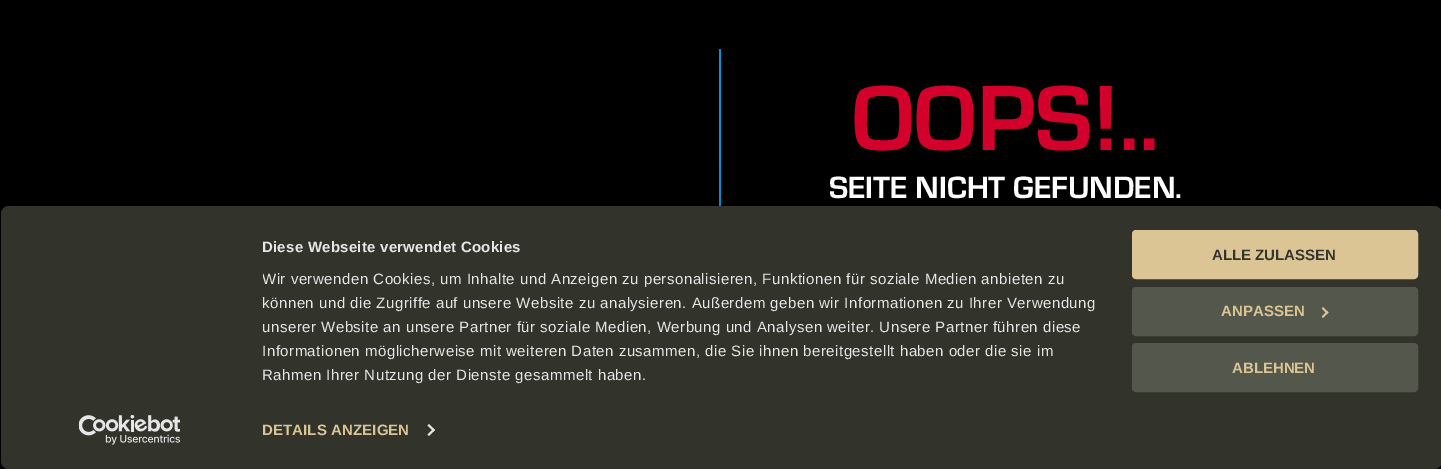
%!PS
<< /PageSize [1441 469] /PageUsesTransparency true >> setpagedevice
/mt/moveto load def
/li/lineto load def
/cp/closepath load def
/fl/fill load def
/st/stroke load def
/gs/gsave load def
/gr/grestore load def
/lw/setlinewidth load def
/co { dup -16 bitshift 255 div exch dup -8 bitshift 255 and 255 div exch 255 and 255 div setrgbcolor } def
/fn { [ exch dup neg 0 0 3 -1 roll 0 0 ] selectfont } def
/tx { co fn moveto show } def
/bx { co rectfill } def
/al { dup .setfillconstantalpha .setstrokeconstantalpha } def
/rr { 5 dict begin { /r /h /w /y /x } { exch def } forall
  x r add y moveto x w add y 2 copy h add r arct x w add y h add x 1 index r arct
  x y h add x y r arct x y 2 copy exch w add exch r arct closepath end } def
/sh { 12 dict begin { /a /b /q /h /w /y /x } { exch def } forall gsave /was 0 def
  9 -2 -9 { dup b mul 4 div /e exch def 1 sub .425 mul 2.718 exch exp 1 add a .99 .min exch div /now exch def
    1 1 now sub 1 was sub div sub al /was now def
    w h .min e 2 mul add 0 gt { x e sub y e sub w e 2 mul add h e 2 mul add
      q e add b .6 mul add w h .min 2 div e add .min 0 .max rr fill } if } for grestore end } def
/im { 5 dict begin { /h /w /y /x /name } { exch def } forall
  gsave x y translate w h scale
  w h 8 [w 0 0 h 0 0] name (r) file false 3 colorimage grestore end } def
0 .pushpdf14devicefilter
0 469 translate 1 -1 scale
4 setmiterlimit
0 0 1441 469 16#000000 bx
719 49 2 157 16#0094D3 bx
16#000000 co
1 236 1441 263 8 35 .3 sh
16#32342C co
1 206 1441 263 8 rr fl
16#E6E6E6 co
429 424 mt 435 430 li 433.5 431.5 li 427.5 425.5 li cp fl
433.5 428.5 mt 435 430 li 429 436 li 427.5 434.5 li cp fl
16#DCC595 co
1133 231 284 47 3 rr gs fl gr
2 lw
st
16#54584C co
1133 288 284 47 3 rr gs fl gr
st
16#DCC595 co
1323 307 mt 1328.5 312.5 li 1327 314 li 1322 308.5 li cp fl
1327 311 mt 1328.5 312.5 li 1323 318 li 1322 316.5 li cp fl
16#54584C co
1133 344 284 47 3 rr gs fl gr
st
(media/1.raw) 79 415 101 30 im
(OOPS!..) 852 150 /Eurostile-Bold 96 16#D3002C tx
(SEITE NICHT GEFUNDEN.) 829 198 /Eurostile-Bold 32 16#FFFFFF tx
/LiberationSans-Bold 15 fn
16#E6E6E6 co
262 252 mt .25 0 (Diese Webseite verwendet Cookies) ashow
gs
263 236 863 151 rectclip
/LiberationSans-Regular 15 fn
262 284 mt .5 0 (Wir verwenden Cookies, um Inhalte und Anzeigen zu personalisieren, Funktionen für soziale Medien anbieten zu) ashow
gr
/LiberationSans-Regular 15 fn
262 308 mt .5 0 (können und die Zugriffe auf unsere Website zu analysieren. Außerdem geben wir Informationen zu Ihrer Verwendung) ashow
262 332 mt .5 0 (unserer Website an unsere Partner für soziale Medien, Werbung und Analysen weiter. Unsere Partner führen diese) ashow
262 356 mt .5 0 (Informationen möglicherweise mit weiteren Daten zusammen, die Sie ihnen bereitgestellt haben oder die sie im) ashow
262 380 mt .5 0 (Rahmen Ihrer Nutzung der Dienste gesammelt haben.) ashow
/LiberationSans-Bold 15 fn
16#DCC595 co
262 435 mt .1 0 (DETAILS ANZEIGEN) ashow
(ALLE ZULASSEN) 1212 260 /LiberationSans-Bold 15 16#32342D tx
(ANPASSEN) 1221 316 /LiberationSans-Bold 15 16#DCC595 tx
(ABLEHNEN) 1232 373 /LiberationSans-Bold 15 16#DCC595 tx
.poppdf14devicefilter showpage
